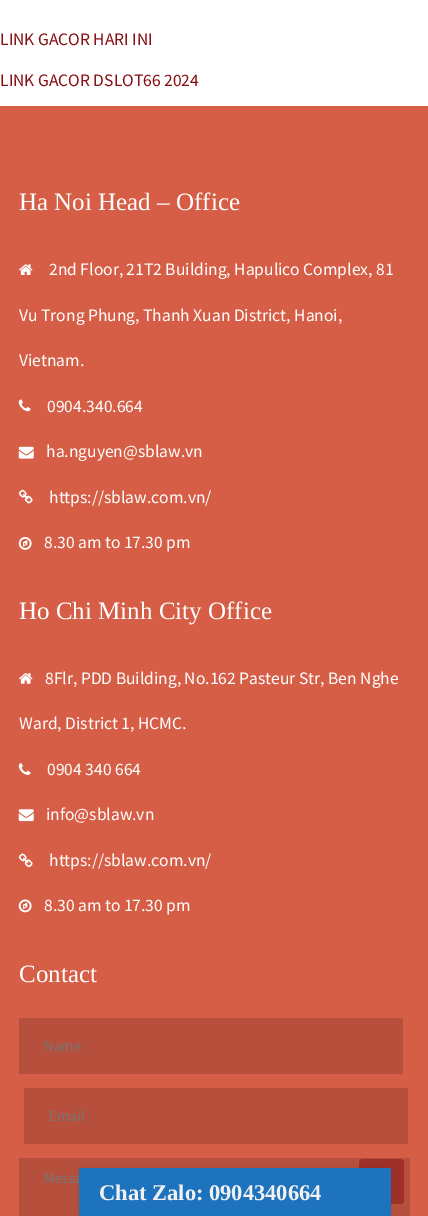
%!PS
<< /PageSize [428 1216] /PageUsesTransparency true >> setpagedevice
/mt/moveto load def
/li/lineto load def
/ct/curveto load def
/cp/closepath load def
/fl/fill load def
/co { dup -16 bitshift 255 div exch dup -8 bitshift 255 and 255 div exch 255 and 255 div setrgbcolor } def
/fn { [ exch dup neg 0 0 3 -1 roll 0 0 ] selectfont } def
/tx { co fn moveto show } def
/bx { co rectfill } def
/al { dup .setfillconstantalpha .setstrokeconstantalpha } def
/rr { 5 dict begin { /r /h /w /y /x } { exch def } forall
  x r add y moveto x w add y 2 copy h add r arct x w add y h add x 1 index r arct
  x y h add x y r arct x y 2 copy exch w add exch r arct closepath end } def
/sh { 12 dict begin { /a /b /q /h /w /y /x } { exch def } forall gsave /was 0 def
  9 -2 -9 { dup b mul 4 div /e exch def 1 sub .425 mul 2.718 exch exp 1 add a .99 .min exch div /now exch def
    1 1 now sub 1 was sub div sub al /was now def
    w h .min e 2 mul add 0 gt { x e sub y e sub w e 2 mul add h e 2 mul add
      q e add b .6 mul add w h .min 2 div e add .min 0 .max rr fill } if } for grestore end } def
/im { 5 dict begin { /h /w /y /x /name } { exch def } forall
  gsave x y translate w h scale
  w h 8 [w 0 0 h 0 0] name (r) file false 3 colorimage grestore end } def
0 .pushpdf14devicefilter
0 1216 translate 1 -1 scale
4 setmiterlimit
0 0 428 1216 16#FFFFFF bx
0 106 428 1110 16#D65E46 bx
(media/1.raw) 19 264 14 11 im
(media/2.raw) 18 399 13 13 im
(media/3.raw) 18 446 16 13 im
(media/4.raw) 18 489 15 15 im
(media/5.raw) 18 537 14 13 im
(media/6.raw) 19 673 14 11 im
(media/7.raw) 18 763 13 12 im
(media/8.raw) 18 809 16 13 im
(media/9.raw) 18 853 15 15 im
(media/10.raw) 18 899 14 14 im
19 1018 384 56 16#B6503C bx
24 1088 384 56 16#B6503C bx
19 1158 391 58 16#B6503C bx
16#9E3028 co
359 1159 45 45 4 rr fl
16#000000 co
79 1168 312 48 2.5 2 .1 sh
(LINK GACOR HARI INI) 0 45 /SourceSansPro-Regular 17.5 16#860F13 tx
(LINK GACOR DSLOT66 2024) 0 86 /SourceSansPro-Regular 17.5 16#860F13 tx
(Ha Noi Head – Office) 19 210 /LiberationSerif-Regular 25 16#FFFFFF tx
(2nd Floor, 21T2 Building, Hapulico Complex, 81) 49 275 /SourceSansPro-Regular 17.5 16#FFFFFF tx
(Vu Trong Phung, Thanh Xuan District, Hanoi,) 19 321 /SourceSansPro-Regular 17.5 16#FFFFFF tx
(Vietnam.) 19 366 /SourceSansPro-Regular 17.5 16#FFFFFF tx
(0904.340.664) 47 412 /SourceSansPro-Regular 17.5 16#FFFFFF tx
(ha.nguyen@sblaw.vn) 46 457 /SourceSansPro-Regular 17.5 16#FFFFFF tx
(https://sblaw.com.vn/) 49 503 /SourceSansPro-Regular 17.5 16#FFFFFF tx
(8.30 am to 17.30 pm) 44 548 /SourceSansPro-Regular 17.5 16#FFFFFF tx
(Ho Chi Minh City Office) 19 619 /LiberationSerif-Regular 25 16#FFFFFF tx
(8Flr, PDD Building, No.162 Pasteur Str, Ben Nghe) 45 684 /SourceSansPro-Regular 17.5 16#FFFFFF tx
(Ward, District 1, HCMC.) 19 729 /SourceSansPro-Regular 17.5 16#FFFFFF tx
(0904 340 664) 47 775 /SourceSansPro-Regular 17.5 16#FFFFFF tx
(info@sblaw.vn) 46 820 /SourceSansPro-Regular 17.5 16#FFFFFF tx
(https://sblaw.com.vn/) 49 866 /SourceSansPro-Regular 17.5 16#FFFFFF tx
(8.30 am to 17.30 pm) 44 911 /SourceSansPro-Regular 17.5 16#FFFFFF tx
(Contact) 19 982 /LiberationSerif-Regular 25 16#FFFFFF tx
(Name) 44 1051 /SourceSansPro-Regular 15 16#757575 tx
(Email) 49 1121 /SourceSansPro-Regular 15 16#757575 tx
(Messa) 44 1183 /SourceSansPro-Regular 15 16#757575 tx
16#1E73BE co
81.5 1168 mt 388.5 1168 li 390 1168 391 1169 391 1170.5 ct 391 1216 li 79 1216 li 79 1170.5 li 79 1169 80 1168 81.5 1168 ct cp fl
80 1168 310 1 16#1E73BE bx
390 1169 1 2 16#1E73BE bx
79 1169 1 2 16#1E73BE bx
(Chat Zalo: 0904340664) 99 1200 /LiberationSerif-Bold 22.5 16#F1F1F1 tx
.poppdf14devicefilter showpage
